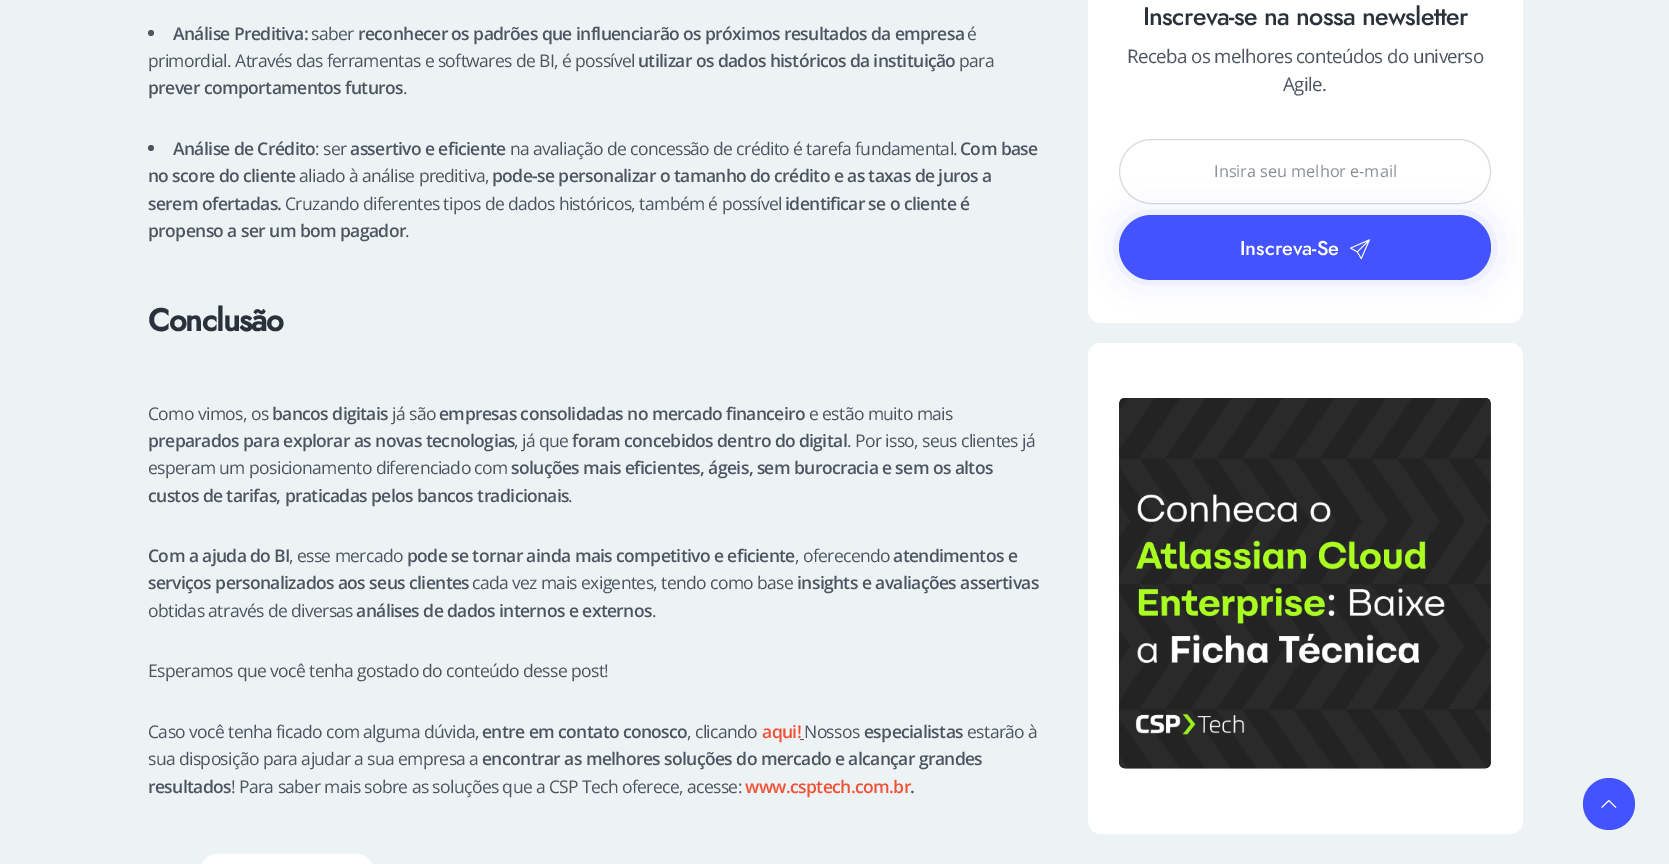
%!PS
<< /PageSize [1669 864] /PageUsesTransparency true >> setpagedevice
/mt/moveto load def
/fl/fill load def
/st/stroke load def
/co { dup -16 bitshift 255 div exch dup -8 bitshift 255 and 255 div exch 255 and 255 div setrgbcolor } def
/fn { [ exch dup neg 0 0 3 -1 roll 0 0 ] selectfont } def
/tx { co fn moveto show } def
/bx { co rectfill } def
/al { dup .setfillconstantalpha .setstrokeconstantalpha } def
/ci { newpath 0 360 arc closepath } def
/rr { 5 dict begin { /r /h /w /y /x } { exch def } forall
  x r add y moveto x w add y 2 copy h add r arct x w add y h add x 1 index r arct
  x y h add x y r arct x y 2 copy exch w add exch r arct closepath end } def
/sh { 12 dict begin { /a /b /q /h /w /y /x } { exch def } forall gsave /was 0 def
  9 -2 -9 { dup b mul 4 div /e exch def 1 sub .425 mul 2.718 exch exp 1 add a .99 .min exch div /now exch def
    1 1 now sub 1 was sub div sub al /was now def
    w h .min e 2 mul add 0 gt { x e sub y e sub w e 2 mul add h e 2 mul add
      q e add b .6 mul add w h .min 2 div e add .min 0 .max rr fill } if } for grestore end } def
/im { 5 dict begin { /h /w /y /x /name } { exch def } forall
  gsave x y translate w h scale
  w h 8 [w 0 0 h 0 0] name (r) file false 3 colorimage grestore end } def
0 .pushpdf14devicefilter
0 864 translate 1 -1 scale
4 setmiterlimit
0 0 1669 864 16#EDF3F5 bx
16#4C5560 co
151 33 3 ci fl
151 148 3 ci fl
800 739 4 1 16#4C5560 bx
16#FFFFFF co
200 854 174 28 17.5 rr fl
1088 -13 435 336 13 rr fl
16#D9D9D9 co
1119.5 139.5 371 64 32 rr st
16#4353FF co
1128 224 355 47 23.5 19.5 .3 sh
1119 215 372 65 32.5 rr fl
(media/1.raw) 1350 239 20 21 im
16#FFFFFF co
1088 343 435 491 13 rr fl
(media/2.raw) 1119 398 372 371 im
16#4353FF co
1609 804 26 ci fl
(media/3.raw) 1601 799 16 9 im
/OpenSans-SemiBold 17.5 fn
16#4C5560 co
173 40 mt -.62 0 (Análise Preditiva:) ashow
/OpenSans-Regular 17.5 fn
311 40 mt -.62 0 (saber) ashow
/OpenSans-SemiBold 17.5 fn
358 40 mt -.62 0 (reconhecer os padrões que influenciarão os próximos resultados da empresa) ashow
/OpenSans-Regular 17.5 fn
967 40 mt -.62 0 (é) ashow
148 67 mt -.62 0 (primordial. Através das ferramentas e softwares de BI, é possível) ashow
/OpenSans-SemiBold 17.5 fn
638 67 mt -.62 0 (utilizar os dados históricos da instituição) ashow
/OpenSans-Regular 17.5 fn
959 67 mt -.62 0 (para) ashow
/OpenSans-SemiBold 17.5 fn
148 94 mt -.62 0 (prever comportamentos futuros) ashow
/OpenSans-Regular 17.5 fn
403 94 mt -.62 0 (.) ashow
/OpenSans-SemiBold 17.5 fn
173 155 mt -.62 0 (Análise de Crédito) ashow
/OpenSans-Regular 17.5 fn
315 155 mt -.62 0 (: ser) ashow
/OpenSans-SemiBold 17.5 fn
350 155 mt -.62 0 (assertivo e eficiente) ashow
/OpenSans-Regular 17.5 fn
510 155 mt -.62 0 (na avaliação de concessão de crédito é tarefa fundamental.) ashow
/OpenSans-SemiBold 17.5 fn
960 155 mt -.62 0 (Com base) ashow
148 182 mt -.62 0 (no score do cliente) ashow
/OpenSans-Regular 17.5 fn
299 182 mt -.62 0 (aliado à análise preditiva,) ashow
/OpenSans-SemiBold 17.5 fn
492 182 mt -.62 0 (pode-se personalizar o tamanho do crédito e as taxas de juros a) ashow
148 210 mt -.62 0 (serem ofertadas.) ashow
/OpenSans-Regular 17.5 fn
285 210 mt -.62 0 (Cruzando diferentes tipos de dados históricos, também é possível) ashow
/OpenSans-SemiBold 17.5 fn
785 210 mt -.62 0 (identificar se o cliente é) ashow
148 237 mt -.62 0 (propenso a ser um bom pagador) ashow
/OpenSans-Regular 17.5 fn
405 237 mt -.62 0 (.) ashow
/Jost-Bold 31.5 fn
16#29313A co
148 331 mt -1 0 (Conclusão) ashow
/OpenSans-Regular 17.5 fn
16#4C5560 co
148 420 mt -.62 0 (Como vimos, os) ashow
/OpenSans-SemiBold 17.5 fn
272 420 mt -.62 0 (bancos digitais) ashow
/OpenSans-Regular 17.5 fn
392 420 mt -.62 0 (já são) ashow
/OpenSans-SemiBold 17.5 fn
439 420 mt -.62 0 (empresas consolidadas no mercado financeiro) ashow
/OpenSans-Regular 17.5 fn
809 420 mt -.62 0 (e estão muito mais) ashow
/OpenSans-SemiBold 17.5 fn
148 447 mt -.62 0 (preparados para explorar as novas tecnologias) ashow
/OpenSans-Regular 17.5 fn
514 447 mt -.62 0 (, já que) ashow
/OpenSans-SemiBold 17.5 fn
572 447 mt -.62 0 (foram concebidos dentro do digital) ashow
/OpenSans-Regular 17.5 fn
847 447 mt -.62 0 (. Por isso, seus clientes já) ashow
148 474 mt -.62 0 (esperam um posicionamento diferenciado com) ashow
/OpenSans-SemiBold 17.5 fn
511 474 mt -.62 0 (soluções mais eficientes, ágeis, sem burocracia e sem os altos) ashow
148 502 mt -.62 0 (custos de tarifas, praticadas pelos bancos tradicionais) ashow
/OpenSans-Regular 17.5 fn
568 502 mt -.62 0 (.) ashow
/OpenSans-SemiBold 17.5 fn
148 562 mt -.62 0 (Com a ajuda do BI) ashow
/OpenSans-Regular 17.5 fn
289 562 mt -.62 0 (, esse mercado) ashow
/OpenSans-SemiBold 17.5 fn
407 562 mt -.62 0 (pode se tornar ainda mais competitivo e eficiente) ashow
/OpenSans-Regular 17.5 fn
795 562 mt -.62 0 (, oferecendo) ashow
/OpenSans-SemiBold 17.5 fn
893 562 mt -.62 0 (atendimentos e) ashow
148 589 mt -.62 0 (serviços personalizados aos seus clientes) ashow
/OpenSans-Regular 17.5 fn
472 589 mt -.62 0 (cada vez mais exigentes, tendo como base) ashow
/OpenSans-SemiBold 17.5 fn
797 589 mt -.62 0 (insights e avaliações assertivas) ashow
/OpenSans-Regular 17.5 fn
148 617 mt -.62 0 (obtidas através de diversas) ashow
/OpenSans-SemiBold 17.5 fn
356 617 mt -.62 0 (análises de dados internos e externos) ashow
/OpenSans-Regular 17.5 fn
652 617 mt -.62 0 (.) ashow
148 677 mt -.62 0 (Esperamos que você tenha gostado do conteúdo desse post!) ashow
148 738 mt -.62 0 (Caso você tenha ficado com alguma dúvida,) ashow
/OpenSans-SemiBold 17.5 fn
482 738 mt -.62 0 (entre em contato conosco) ashow
/OpenSans-Regular 17.5 fn
687 738 mt -.62 0 (, clicando) ashow
/OpenSans-SemiBold 17.5 fn
16#F25035 co
762 738 mt -.62 0 (aqui!) ashow
/OpenSans-Regular 17.5 fn
16#4C5560 co
804 738 mt -.62 0 (Nossos) ashow
/OpenSans-SemiBold 17.5 fn
864 738 mt -.62 0 (especialistas) ashow
/OpenSans-Regular 17.5 fn
967 738 mt -.62 0 (estarão à) ashow
148 765 mt -.62 0 (sua disposição para ajudar a sua empresa a) ashow
/OpenSans-SemiBold 17.5 fn
482 765 mt -.62 0 (encontrar as melhores soluções do mercado e alcançar grandes) ashow
148 793 mt -.62 0 (resultados) ashow
/OpenSans-Regular 17.5 fn
231 793 mt -.62 0 (! Para saber mais sobre as soluções que a CSP Tech oferece, acesse:) ashow
/OpenSans-SemiBold 17.5 fn
16#F25035 co
745 793 mt -.62 0 (www.csptech.com.br) ashow
16#4C5560 co
910 793 mt -.62 0 (.) ashow
/Jost-Medium 25.2 fn
16#29313A co
1143 25 mt -.62 0 (Inscreva-se na nossa newsletter) ashow
/OpenSans-Regular 18.75 fn
16#4C5560 co
1127 63 mt -.62 0 (Receba os melhores conteúdos do universo) ashow
1283 91 mt -.62 0 (Agile.) ashow
(Insira seu melhor e-mail) 1214 177 /OpenSans-Regular 16.25 16#888F96 tx
(Inscreva-Se) 1240 255 /Jost-Medium 20 16#FFFFFF tx
.poppdf14devicefilter showpage
